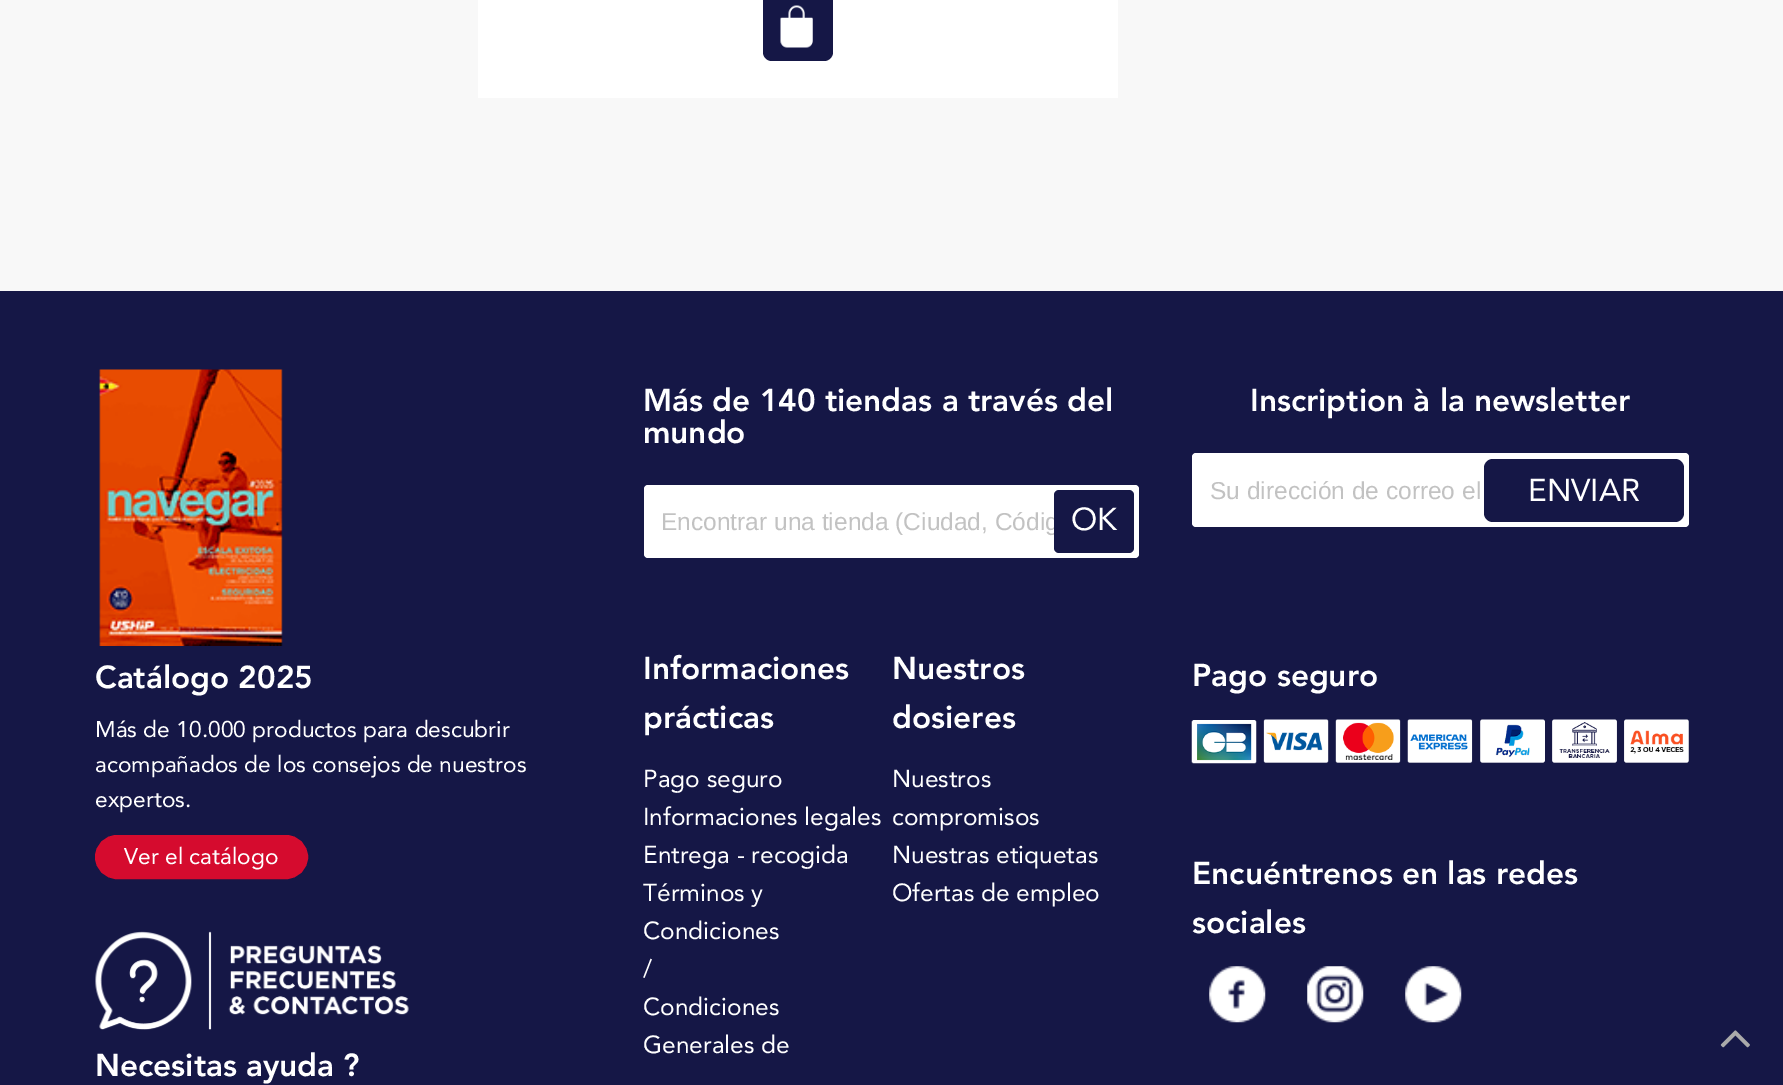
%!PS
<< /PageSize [1783 1085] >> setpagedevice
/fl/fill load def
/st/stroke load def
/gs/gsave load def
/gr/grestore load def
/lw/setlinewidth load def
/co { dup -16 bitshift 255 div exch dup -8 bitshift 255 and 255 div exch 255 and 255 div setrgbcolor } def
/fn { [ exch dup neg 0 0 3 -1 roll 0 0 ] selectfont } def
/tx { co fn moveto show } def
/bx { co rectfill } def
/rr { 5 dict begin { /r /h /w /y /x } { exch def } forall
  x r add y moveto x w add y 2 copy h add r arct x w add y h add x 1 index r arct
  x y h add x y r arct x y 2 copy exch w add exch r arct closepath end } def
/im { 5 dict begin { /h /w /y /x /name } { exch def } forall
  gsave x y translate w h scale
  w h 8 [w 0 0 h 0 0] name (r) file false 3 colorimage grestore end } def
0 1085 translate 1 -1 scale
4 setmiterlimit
0 0 1783 1085 16#F8F8F8 bx
478 0 640 98 16#FFFFFF bx
16#151746 co
763 -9 70 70 9 rr fl
(media/1.raw) 780 5 33 43 im
0 291 1783 794 16#151746 bx
(media/2.raw) 99 369 184 277 im
16#D50B2E co
96 836 211 42 21 rr gs fl gr
2 lw
st
(media/3.raw) 95 931 314 99 im
16#FFFFFF co
644 485 495 73 4 rr fl
1192 453 497 74 4 rr fl
16#151746 co
1484 459 200 63 9 rr fl
(media/4.raw) 1191 719 498 45 im
(media/5.raw) 1209 966 57 57 im
(media/6.raw) 1307 966 57 57 im
(media/7.raw) 1405 966 57 57 im
(media/8.raw) 1720 1030 30 18 im
(Catálogo 2025) 95 688 /Avenir-Black 31.5 16#FFFFFF tx
(Más de 10.000 productos para descubrir) 95 737 /Avenir-Regular 22.75 16#FFFFFF tx
(acompañados de los consejos de nuestros) 95 772 /Avenir-Regular 22.75 16#FFFFFF tx
(expertos.) 95 807 /Avenir-Regular 22.75 16#FFFFFF tx
(Ver el catálogo) 124 864 /Avenir-Regular 22.75 16#FFFFFF tx
(Necesitas ayuda ?) 95 1076 /Avenir-Black 31.5 16#FFFFFF tx
(Más de 140 tiendas a través del) 643 411 /Avenir-Black 31.5 16#FFFFFF tx
(mundo) 643 443 /Avenir-Black 31.5 16#FFFFFF tx
(Encontrar una tienda \(Ciudad, Códig) 661 530 /LiberationSans-Regular 24.5 16#C2C2C2 tx
16#151746 co
1054 490 80 63 5 rr fl
(OK) 1071 530 /Avenir-Regular 31.5 16#FFFFFF tx
(Informaciones) 643 679 /Avenir-Black 31.5 16#FFFFFF tx
(prácticas) 643 728 /Avenir-Black 31.5 16#FFFFFF tx
(Pago seguro) 643 787 /Avenir-Regular 24.5 16#FFFFFF tx
(Informaciones legales) 643 825 /Avenir-Regular 24.5 16#FFFFFF tx
(Entrega - recogida) 643 863 /Avenir-Regular 24.5 16#FFFFFF tx
(Términos y) 643 901 /Avenir-Regular 24.5 16#FFFFFF tx
(Condiciones) 643 939 /Avenir-Regular 24.5 16#FFFFFF tx
(/) 643 977 /Avenir-Regular 24.5 16#FFFFFF tx
(Condiciones) 643 1015 /Avenir-Regular 24.5 16#FFFFFF tx
(Generales de) 643 1053 /Avenir-Regular 24.5 16#FFFFFF tx
(Nuestros) 892 679 /Avenir-Black 31.5 16#FFFFFF tx
(dosieres) 892 728 /Avenir-Black 31.5 16#FFFFFF tx
(Nuestros) 892 787 /Avenir-Regular 24.5 16#FFFFFF tx
(compromisos) 892 825 /Avenir-Regular 24.5 16#FFFFFF tx
(Nuestras etiquetas) 892 863 /Avenir-Regular 24.5 16#FFFFFF tx
(Ofertas de empleo) 892 901 /Avenir-Regular 24.5 16#FFFFFF tx
(Inscription à la newsletter) 1250 411 /Avenir-Black 31.5 16#FFFFFF tx
(Su dirección de correo el) 1210 499 /LiberationSans-Regular 24.5 16#C2C2C2 tx
(ENVIAR) 1528 501 /Avenir-Regular 31.5 16#FFFFFF tx
(Pago seguro) 1192 686 /Avenir-Black 31.5 16#FFFFFF tx
(Encuéntrenos en las redes) 1192 884 /Avenir-Black 31.5 16#FFFFFF tx
(sociales) 1192 933 /Avenir-Black 31.5 16#FFFFFF tx
showpage
